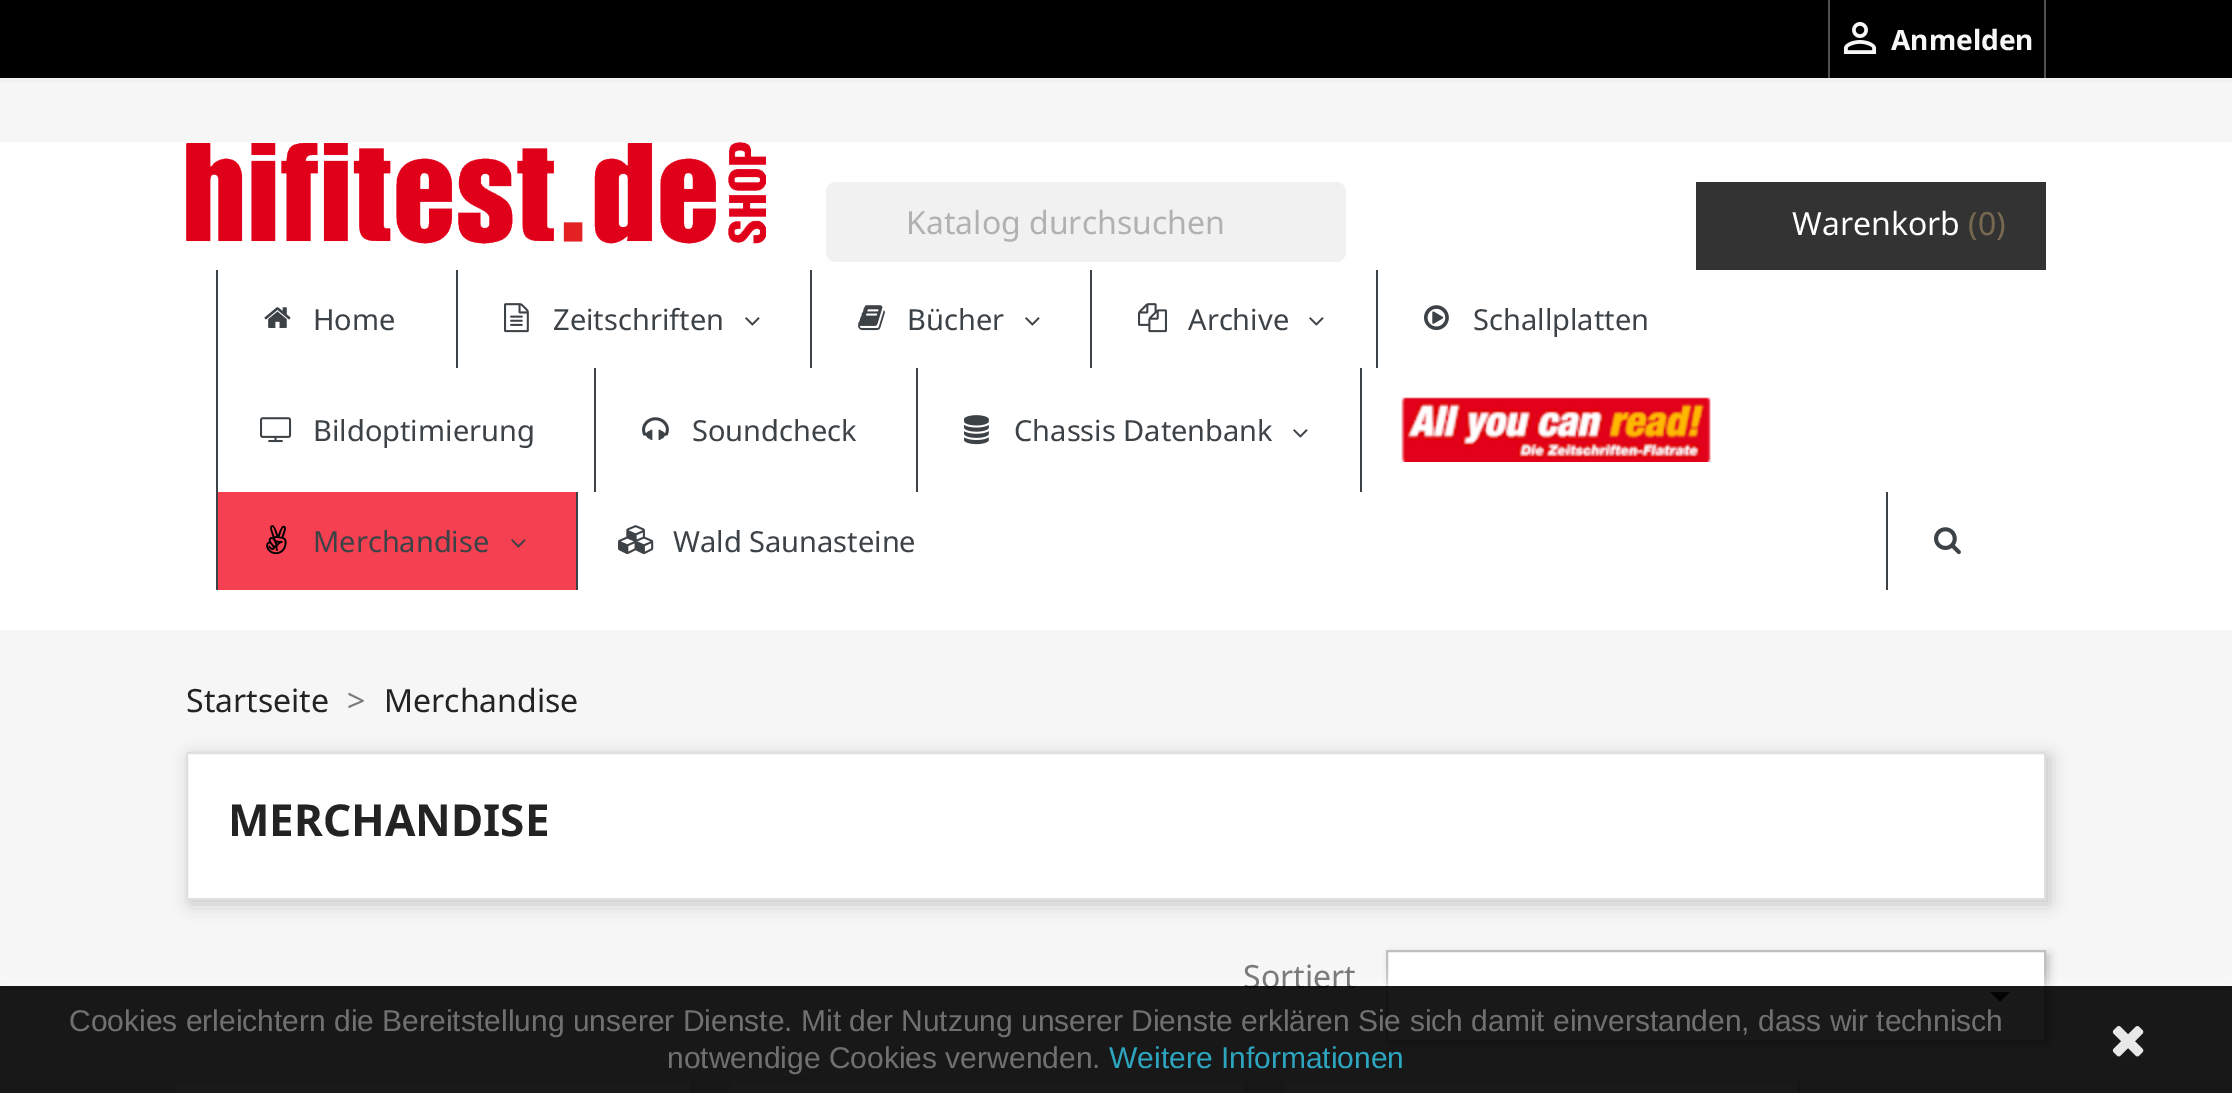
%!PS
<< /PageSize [2232 1093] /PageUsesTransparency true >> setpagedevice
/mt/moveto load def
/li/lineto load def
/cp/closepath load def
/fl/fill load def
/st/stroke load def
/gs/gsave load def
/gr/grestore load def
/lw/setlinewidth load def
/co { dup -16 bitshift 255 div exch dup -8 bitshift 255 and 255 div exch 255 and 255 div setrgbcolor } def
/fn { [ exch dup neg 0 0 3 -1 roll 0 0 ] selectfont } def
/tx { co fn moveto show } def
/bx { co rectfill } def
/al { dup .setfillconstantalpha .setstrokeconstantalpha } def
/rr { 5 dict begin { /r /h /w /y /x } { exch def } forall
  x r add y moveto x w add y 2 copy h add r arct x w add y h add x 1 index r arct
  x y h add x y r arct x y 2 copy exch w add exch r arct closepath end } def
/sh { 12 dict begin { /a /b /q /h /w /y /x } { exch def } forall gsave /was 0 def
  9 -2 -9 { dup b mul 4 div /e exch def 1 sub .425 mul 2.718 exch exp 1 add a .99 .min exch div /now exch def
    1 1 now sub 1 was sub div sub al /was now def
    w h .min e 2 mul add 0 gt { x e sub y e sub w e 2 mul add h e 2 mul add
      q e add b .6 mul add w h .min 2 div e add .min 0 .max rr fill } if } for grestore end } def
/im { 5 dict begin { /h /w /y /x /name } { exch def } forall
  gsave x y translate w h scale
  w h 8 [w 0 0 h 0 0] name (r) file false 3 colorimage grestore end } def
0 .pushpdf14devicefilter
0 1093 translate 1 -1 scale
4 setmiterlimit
0 0 2232 1093 16#F6F6F6 bx
0 0 2232 78 16#000000 bx
0 78 2232 4 16#F1F1F1 bx
2044 0 2 78 16#515151 bx
1828 0 2 78 16#515151 bx
(media/1.raw) 1843 22 34 32 im
0 142 2232 488 16#FFFFFF bx
(media/2.raw) 186 142 580 102 im
16#F1F1F1 co
826 182 520 80 10 rr fl
1696 182 350 88 16#333333 bx
216 270 2 320 16#3D4246 bx
(media/3.raw) 264 307 27 21 im
456 270 2 98 16#3D4246 bx
(media/4.raw) 504 303 25 30 im
(media/5.raw) 745 317 15 9 im
810 270 2 98 16#3D4246 bx
(media/6.raw) 858 305 27 26 im
(media/5.raw) 1025 317 15 9 im
1090 270 2 98 16#3D4246 bx
(media/7.raw) 1138 303 29 30 im
(media/5.raw) 1309 317 15 9 im
1376 270 2 98 16#3D4246 bx
(media/8.raw) 1424 305 25 26 im
(media/9.raw) 260 417 32 26 im
594 368 2 124 16#3D4246 bx
(media/10.raw) 642 417 27 23 im
916 368 2 124 16#3D4246 bx
(media/11.raw) 964 415 25 30 im
(media/5.raw) 1293 429 15 9 im
1360 368 2 124 16#3D4246 bx
(media/12.raw) 1401 397 310 65 im
218 492 358 98 16#F44051 bx
(media/13.raw) 266 525 21 30 im
(media/14.raw) 511 539 15 9 im
576 492 2 98 16#3D4246 bx
(media/15.raw) 618 525 36 30 im
1886 492 2 98 16#3D4246 bx
(media/16.raw) 1934 527 27 28 im
16#000000 co
190 756 1860 148 0 8 .2 sh
16#FFFFFF co
187 753 mt 2045 753 li 2045 899 li 187 899 li cp gs fl gr
16#DFDFDF co
2 lw
st
16#000000 co
1390 954 660 92 0 4 .2 sh
16#FFFFFF co
1387 951 mt 2045 951 li 2045 1041 li 1387 1041 li cp gs fl gr
16#BFBFBF co
st
16#232323 co
1990 992 mt 2010 992 li 2000 1002 li cp fl
16#000000 co
180 1086 514 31 0 8 .2 sh
176 1082 514 11 16#FFFFFF bx
16#000000 co
734 1086 514 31 0 8 .2 sh
730 1082 514 11 16#FFFFFF bx
16#000000 co
1288 1086 514 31 0 8 .2 sh
1284 1082 514 11 16#FFFFFF bx
gs
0 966 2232 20 rectclip
0 986 2232 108 0 10 .9 sh
gr
(Anmelden) 1891 50 /NotoSans-Bold 28 16#F7F7F7 tx
(Katalog durchsuchen) 906 234 /NotoSans-Regular 32 16#B1B1B1 tx
(Warenkorb) 1792 235 /NotoSans-Regular 32 16#FFFFFF tx
(\(0\)) 1968 235 /NotoSans-Regular 32 16#776950 tx
(Home) 313 330 /NotoSans-Regular 29 16#3D4246 tx
(Zeitschriften) 553 330 /NotoSans-Regular 29 16#3D4246 tx
(Bücher) 907 330 /NotoSans-Regular 29 16#3D4246 tx
(Archive) 1188 330 /NotoSans-Regular 29 16#3D4246 tx
(Schallplatten) 1473 330 /NotoSans-Regular 29 16#3D4246 tx
(Bildoptimierung) 313 441 /NotoSans-Regular 29 16#3D4246 tx
(Soundcheck) 692 441 /NotoSans-Regular 29 16#3D4246 tx
(Chassis Datenbank) 1014 441 /NotoSans-Regular 29 16#3D4246 tx
(Merchandise) 313 552 /NotoSans-Regular 29 16#3D4246 tx
(Wald Saunasteine) 673 552 /NotoSans-Regular 29 16#3D4246 tx
(Startseite) 186 712 /NotoSans-Regular 32 16#232323 tx
(>) 347 712 /NotoSans-Regular 32 16#7A7A7A tx
(Merchandise) 384 712 /NotoSans-Regular 32 16#232323 tx
(MERCHANDISE) 228 836 /NotoSans-Bold 44 16#232323 tx
(Sortiert) 1243 988 /NotoSans-Regular 32 16#7A7A7A tx
0.9 al
0 986 2232 107 16#000000 bx
1 al
(Cookies erleichtern die Bereitstellung unserer Dienste. Mit der Nutzung unserer Dienste erklären Sie sich damit einverstanden, dass wir technisch) 69 1031 /LiberationSans-Regular 30 16#707070 tx
(notwendige Cookies verwenden.) 667 1068 /LiberationSans-Regular 30 16#707070 tx
(Weitere Informationen) 1109 1068 /LiberationSans-Regular 30 16#2DA5BF tx
(media/17.raw) 2112 1026 32 31 im
.poppdf14devicefilter showpage
